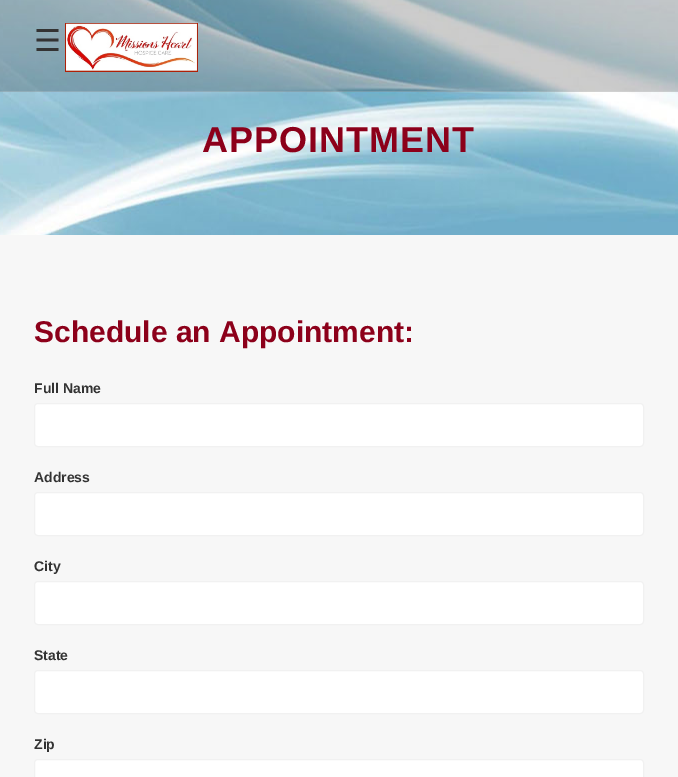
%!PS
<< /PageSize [678 777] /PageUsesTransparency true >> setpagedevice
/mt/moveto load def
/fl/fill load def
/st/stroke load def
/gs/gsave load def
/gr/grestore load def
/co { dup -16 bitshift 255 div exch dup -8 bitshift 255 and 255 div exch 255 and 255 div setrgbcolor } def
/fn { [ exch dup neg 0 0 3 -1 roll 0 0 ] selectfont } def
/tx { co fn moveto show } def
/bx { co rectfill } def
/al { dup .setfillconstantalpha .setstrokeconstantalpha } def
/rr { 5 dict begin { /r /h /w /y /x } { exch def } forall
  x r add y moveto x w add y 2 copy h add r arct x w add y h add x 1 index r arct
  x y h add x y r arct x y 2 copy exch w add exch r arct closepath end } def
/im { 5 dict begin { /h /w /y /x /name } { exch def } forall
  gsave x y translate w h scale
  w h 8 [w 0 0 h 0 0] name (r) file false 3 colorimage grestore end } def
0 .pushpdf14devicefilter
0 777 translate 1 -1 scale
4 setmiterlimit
0 0 678 777 16#F7F7F7 bx
(media/2.raw) 0 0 678 235 im
0.2 al
0 0 678 92 16#000000 bx
0 91 678 1 16#E3E3E3 bx
1 al
(media/1.raw) 65 23 133 49 im
16#FFFFFF co
34.5 403.5 609 43 3.5 rr gs fl gr
16#F1F1F1 co
st
16#FFFFFF co
34.5 492.5 609 43 3.5 rr gs fl gr
16#F1F1F1 co
st
16#FFFFFF co
34.5 581.5 609 43 3.5 rr gs fl gr
16#F1F1F1 co
st
16#FFFFFF co
34.5 670.5 609 43 3.5 rr gs fl gr
16#F1F1F1 co
st
16#FFFFFF co
34.5 759.5 609 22 3.5 rr gs fl gr
16#F1F1F1 co
st
(☰) 34 51 /DejaVuSans-Regular 30 16#333333 tx
/LiberationSans-Bold 36 fn
16#8C001A co
202 152 mt 1 0 (APPOINTMENT) ashow
(Schedule an Appointment:) 34 342 /LiberationSans-Bold 30 16#8C001A tx
(Full Name) 34 393 /LiberationSans-Bold 14 16#333333 tx
(Address) 34 482 /LiberationSans-Bold 14 16#333333 tx
(City) 34 571 /LiberationSans-Bold 14 16#333333 tx
(State) 34 660 /LiberationSans-Bold 14 16#333333 tx
(Zip) 34 749 /LiberationSans-Bold 14 16#333333 tx
.poppdf14devicefilter showpage
